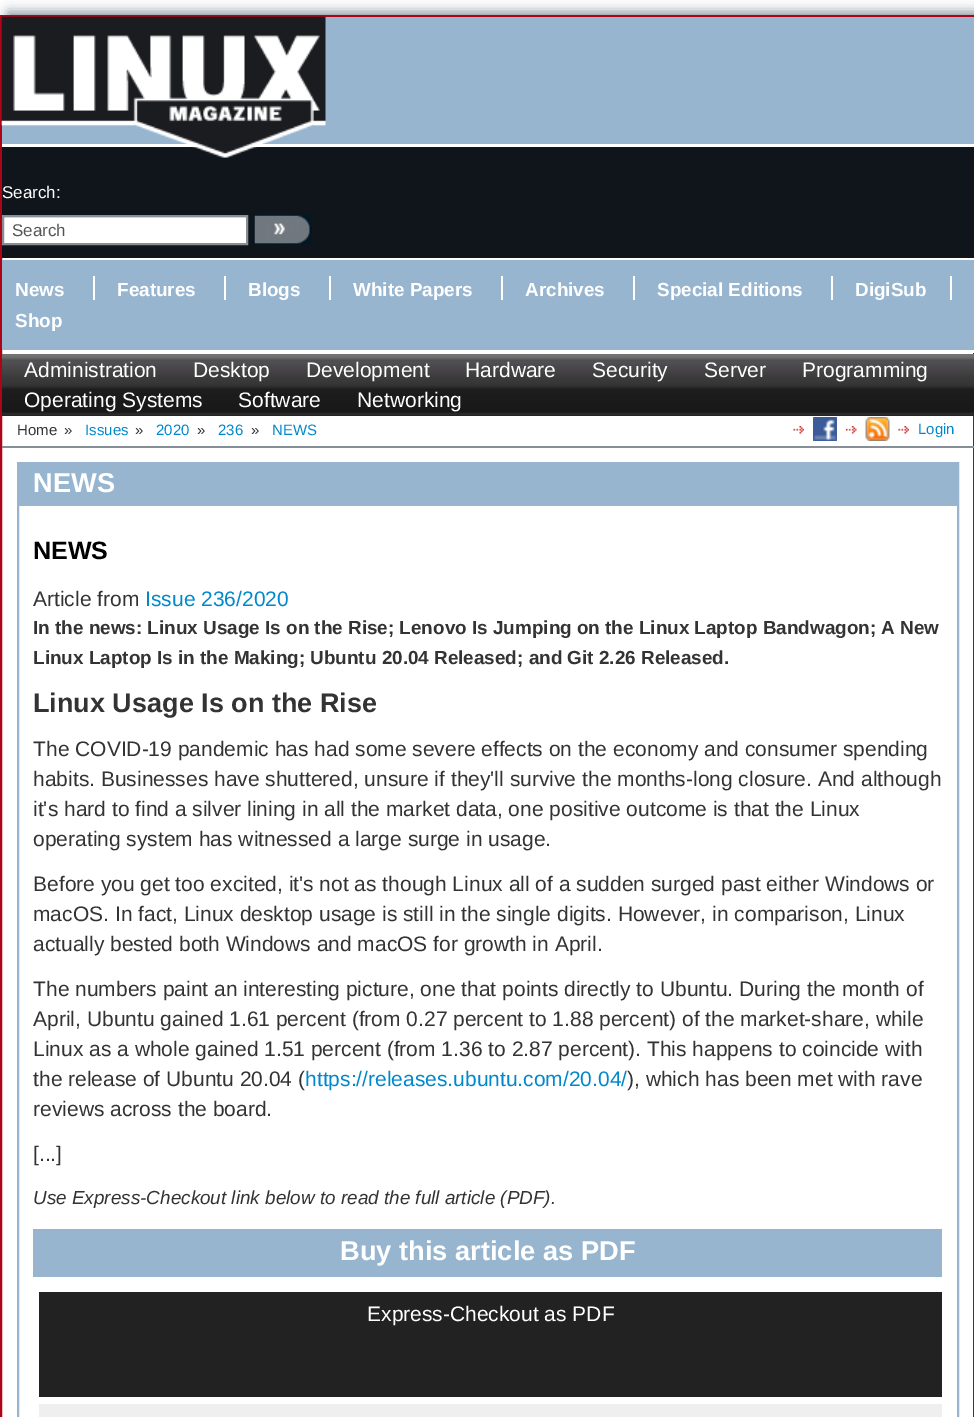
%!PS
<< /PageSize [974 1417] /PageUsesTransparency true >> setpagedevice
/mt/moveto load def
/li/lineto load def
/cp/closepath load def
/gs/gsave load def
/gr/grestore load def
/lw/setlinewidth load def
/co { dup -16 bitshift 255 div exch dup -8 bitshift 255 and 255 div exch 255 and 255 div setrgbcolor } def
/fn { [ exch dup neg 0 0 3 -1 roll 0 0 ] selectfont } def
/tx { co fn moveto show } def
/bx { co rectfill } def
/al { dup .setfillconstantalpha .setstrokeconstantalpha } def
/rr { 5 dict begin { /r /h /w /y /x } { exch def } forall
  x r add y moveto x w add y 2 copy h add r arct x w add y h add x 1 index r arct
  x y h add x y r arct x y 2 copy exch w add exch r arct closepath end } def
/sh { 12 dict begin { /a /b /q /h /w /y /x } { exch def } forall gsave /was 0 def
  9 -2 -9 { dup b mul 4 div /e exch def 1 sub .425 mul 2.718 exch exp 1 add a .99 .min exch div /now exch def
    1 1 now sub 1 was sub div sub al /was now def
    w h .min e 2 mul add 0 gt { x e sub y e sub w e 2 mul add h e 2 mul add
      q e add b .6 mul add w h .min 2 div e add .min 0 .max rr fill } if } for grestore end } def
/im { 5 dict begin { /h /w /y /x /name } { exch def } forall
  gsave x y translate w h scale
  w h 8 [w 0 0 h 0 0] name (r) file false 3 colorimage grestore end } def
0 .pushpdf14devicefilter
0 1417 translate 1 -1 scale
4 setmiterlimit
0 0 974 1417 16#FFFFFF bx
gs
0 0 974 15 rectclip
16#878F96 co
8 12 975 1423 0 6 1 sh
gr
16#AE0417 co
2 lw
1 16 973 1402 rectstroke
2 147 972 111 16#0F151A bx
2 17 972 127 16#97B5CF bx
973 144 1 3 16#FFFFFF bx
(media/1.raw) 1 16 325 142 im
4 218 242 25 16#FFFFFF bx
3 217 243 1 16#ECECEC bx
16#878F96 co
3 216 244 28 rectstroke
(media/2.raw) 253 214 59 31 im
973 350 1 3 16#FFFFFF bx
2 260 972 90 16#97B5CF bx
973 258 1 2 16#FFFFFF bx
93 276 2 24 16#FFFFFF bx
224 276 2 24 16#FFFFFF bx
329 276 2 24 16#FFFFFF bx
501 276 2 24 16#FFFFFF bx
633 276 2 24 16#FFFFFF bx
831 276 2 24 16#FFFFFF bx
950 276 2 24 16#FFFFFF bx
gs 2 354 mt 974 354 li 974 416 li 2 416 li cp clip newpath
<< /ShadingType 2 /ColorSpace /DeviceRGB /Coords [473 354 473 416] /Extend [true true] /Function << /FunctionType 3 /Domain [0 1] /Functions [<< /FunctionType 2 /Domain [0 1] /C0 [.451 .451 .451] /C1 [.451 .451 .451] /N 1 >> << /FunctionType 2 /Domain [0 1] /C0 [.451 .451 .451] /C1 [.404 .404 .404] /N 1 >> << /FunctionType 2 /Domain [0 1] /C0 [.404 .404 .404] /C1 [.302 .298 .31] /N 1 >> << /FunctionType 2 /Domain [0 1] /C0 [.302 .298 .31] /C1 [.314 .31 .322] /N 1 >> << /FunctionType 2 /Domain [0 1] /C0 [.314 .31 .322] /C1 [.239 .235 .239] /N 1 >> << /FunctionType 2 /Domain [0 1] /C0 [.239 .235 .239] /C1 [.212 .208 .212] /N 1 >> << /FunctionType 2 /Domain [0 1] /C0 [.212 .208 .212] /C1 [.184 .18 .184] /N 1 >> << /FunctionType 2 /Domain [0 1] /C0 [.184 .18 .184] /C1 [.114 .114 .114] /N 1 >> << /FunctionType 2 /Domain [0 1] /C0 [.114 .114 .114] /C1 [.094 .094 .094] /N 1 >> << /FunctionType 2 /Domain [0 1] /C0 [.094 .094 .094] /C1 [.184 .18 .18] /N 1 >> << /FunctionType 2 /Domain [0 1] /C0 [.184 .18 .18] /C1 [.145 .141 .141] /N 1 >>] /Bounds [.03 .07 .1 .13 .37 .5 .53 .57 .93 .97] /Encode [0 1 0 1 0 1 0 1 0 1 0 1 0 1 0 1 0 1 0 1 0 1] >> >> shfill gr
2 446 972 2 16#878F96 bx
(media/3.raw) 793 426 11 8 im
(media/4.raw) 813 417 24 24 im
(media/5.raw) 846 426 11 8 im
(media/6.raw) 865 417 25 24 im
(media/3.raw) 898 426 11 8 im
16#97B5CF co
18 463 940 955 rectstroke
19 464 938 42 16#97B5CF bx
33 1229 909 48 16#97B5CF bx
39 1292 903 105 16#222222 bx
39 1404 903 13 16#EFEFEF bx
(Search:) 2 198 /LiberationSans-Regular 17 16#FFFFFF tx
(Search) 12 236 /LiberationSans-Regular 17 16#555555 tx
(News) 15 296 /LiberationSans-Bold 18.9 16#FFFFFF tx
(Features) 117 296 /LiberationSans-Bold 18.9 16#FFFFFF tx
(Blogs) 248 296 /LiberationSans-Bold 18.9 16#FFFFFF tx
(White Papers) 353 296 /LiberationSans-Bold 18.9 16#FFFFFF tx
(Archives) 525 296 /LiberationSans-Bold 18.9 16#FFFFFF tx
(Special Editions) 657 296 /LiberationSans-Bold 18.9 16#FFFFFF tx
(DigiSub) 855 296 /LiberationSans-Bold 18.9 16#FFFFFF tx
(Shop) 15 327 /LiberationSans-Bold 18.9 16#FFFFFF tx
(Administration) 24 377 /LiberationSans-Regular 21 16#FFFFFF tx
(Desktop) 193 377 /LiberationSans-Regular 21 16#FFFFFF tx
(Development) 306 377 /LiberationSans-Regular 21 16#FFFFFF tx
(Hardware) 465 377 /LiberationSans-Regular 21 16#FFFFFF tx
(Security) 592 377 /LiberationSans-Regular 21 16#FFFFFF tx
(Server) 704 377 /LiberationSans-Regular 21 16#FFFFFF tx
(Programming) 802 377 /LiberationSans-Regular 21 16#FFFFFF tx
(Operating Systems) 24 407 /LiberationSans-Regular 21 16#FFFFFF tx
(Software) 238 407 /LiberationSans-Regular 21 16#FFFFFF tx
(Networking) 357 407 /LiberationSans-Regular 21 16#FFFFFF tx
(Home) 17 435 /LiberationSans-Regular 15 16#333333 tx
(») 64 435 /LiberationSans-Regular 15 16#333333 tx
(Issues) 85 435 /LiberationSans-Regular 15 16#0088CC tx
(») 135 435 /LiberationSans-Regular 15 16#333333 tx
(2020) 156 435 /LiberationSans-Regular 15 16#0088CC tx
(») 197 435 /LiberationSans-Regular 15 16#333333 tx
(236) 218 435 /LiberationSans-Regular 15 16#0088CC tx
(») 251 435 /LiberationSans-Regular 15 16#333333 tx
(NEWS) 272 435 /LiberationSans-Regular 15 16#0088CC tx
(Login) 918 434 /LiberationSans-Regular 15 16#0088CC tx
(NEWS) 33 492 /LiberationSans-Bold 27.25 16#FFFFFF tx
(NEWS) 33 559 /LiberationSans-Bold 25 16#000000 tx
(Article from) 33 606 /LiberationSans-Regular 21 16#333333 tx
(Issue 236/2020) 145 606 /LiberationSans-Regular 21 16#0088CC tx
(In the news: Linux Usage Is on the Rise; Lenovo Is Jumping on the Linux Laptop Bandwagon; A New) 33 634 /LiberationSans-Bold 18.9 16#333333 tx
(Linux Laptop Is in the Making; Ubuntu 20.04 Released; and Git 2.26 Released.) 33 664 /LiberationSans-Bold 18.9 16#333333 tx
(Linux Usage Is on the Rise) 33 712 /LiberationSans-Bold 27 16#333333 tx
(The COVID-19 pandemic has had some severe effects on the economy and consumer spending) 33 756 /LiberationSans-Regular 21 16#333333 tx
(habits. Businesses have shuttered, unsure if they'll survive the months-long closure. And although) 33 786 /LiberationSans-Regular 21 16#333333 tx
(it's hard to find a silver lining in all the market data, one positive outcome is that the Linux) 33 816 /LiberationSans-Regular 21 16#333333 tx
(operating system has witnessed a large surge in usage.) 33 846 /LiberationSans-Regular 21 16#333333 tx
(Before you get too excited, it's not as though Linux all of a sudden surged past either Windows or) 33 891 /LiberationSans-Regular 21 16#333333 tx
(macOS. In fact, Linux desktop usage is still in the single digits. However, in comparison, Linux) 33 921 /LiberationSans-Regular 21 16#333333 tx
(actually bested both Windows and macOS for growth in April.) 33 951 /LiberationSans-Regular 21 16#333333 tx
(The numbers paint an interesting picture, one that points directly to Ubuntu. During the month of) 33 996 /LiberationSans-Regular 21 16#333333 tx
(April, Ubuntu gained 1.61 percent \(from 0.27 percent to 1.88 percent\) of the market-share, while) 33 1026 /LiberationSans-Regular 21 16#333333 tx
(Linux as a whole gained 1.51 percent \(from 1.36 to 2.87 percent\). This happens to coincide with) 33 1056 /LiberationSans-Regular 21 16#333333 tx
(the release of Ubuntu 20.04 \() 33 1086 /LiberationSans-Regular 21 16#333333 tx
(https://releases.ubuntu.com/20.04/) 305 1086 /LiberationSans-Regular 21 16#0088CC tx
(\), which has been met with rave) 627 1086 /LiberationSans-Regular 21 16#333333 tx
(reviews across the board.) 33 1116 /LiberationSans-Regular 21 16#333333 tx
([...]) 33 1161 /LiberationSans-Regular 21 16#333333 tx
(Use Express-Checkout link below to read the full article \(PDF\).) 33 1204 /LiberationSans-Italic 18.9 16#333333 tx
(Buy this article as PDF) 340 1260 /LiberationSans-Bold 27.25 16#FFFFFF tx
(Express-Checkout as PDF) 367 1321 /LiberationSans-Regular 21 16#FFFFFF tx
.poppdf14devicefilter showpage
